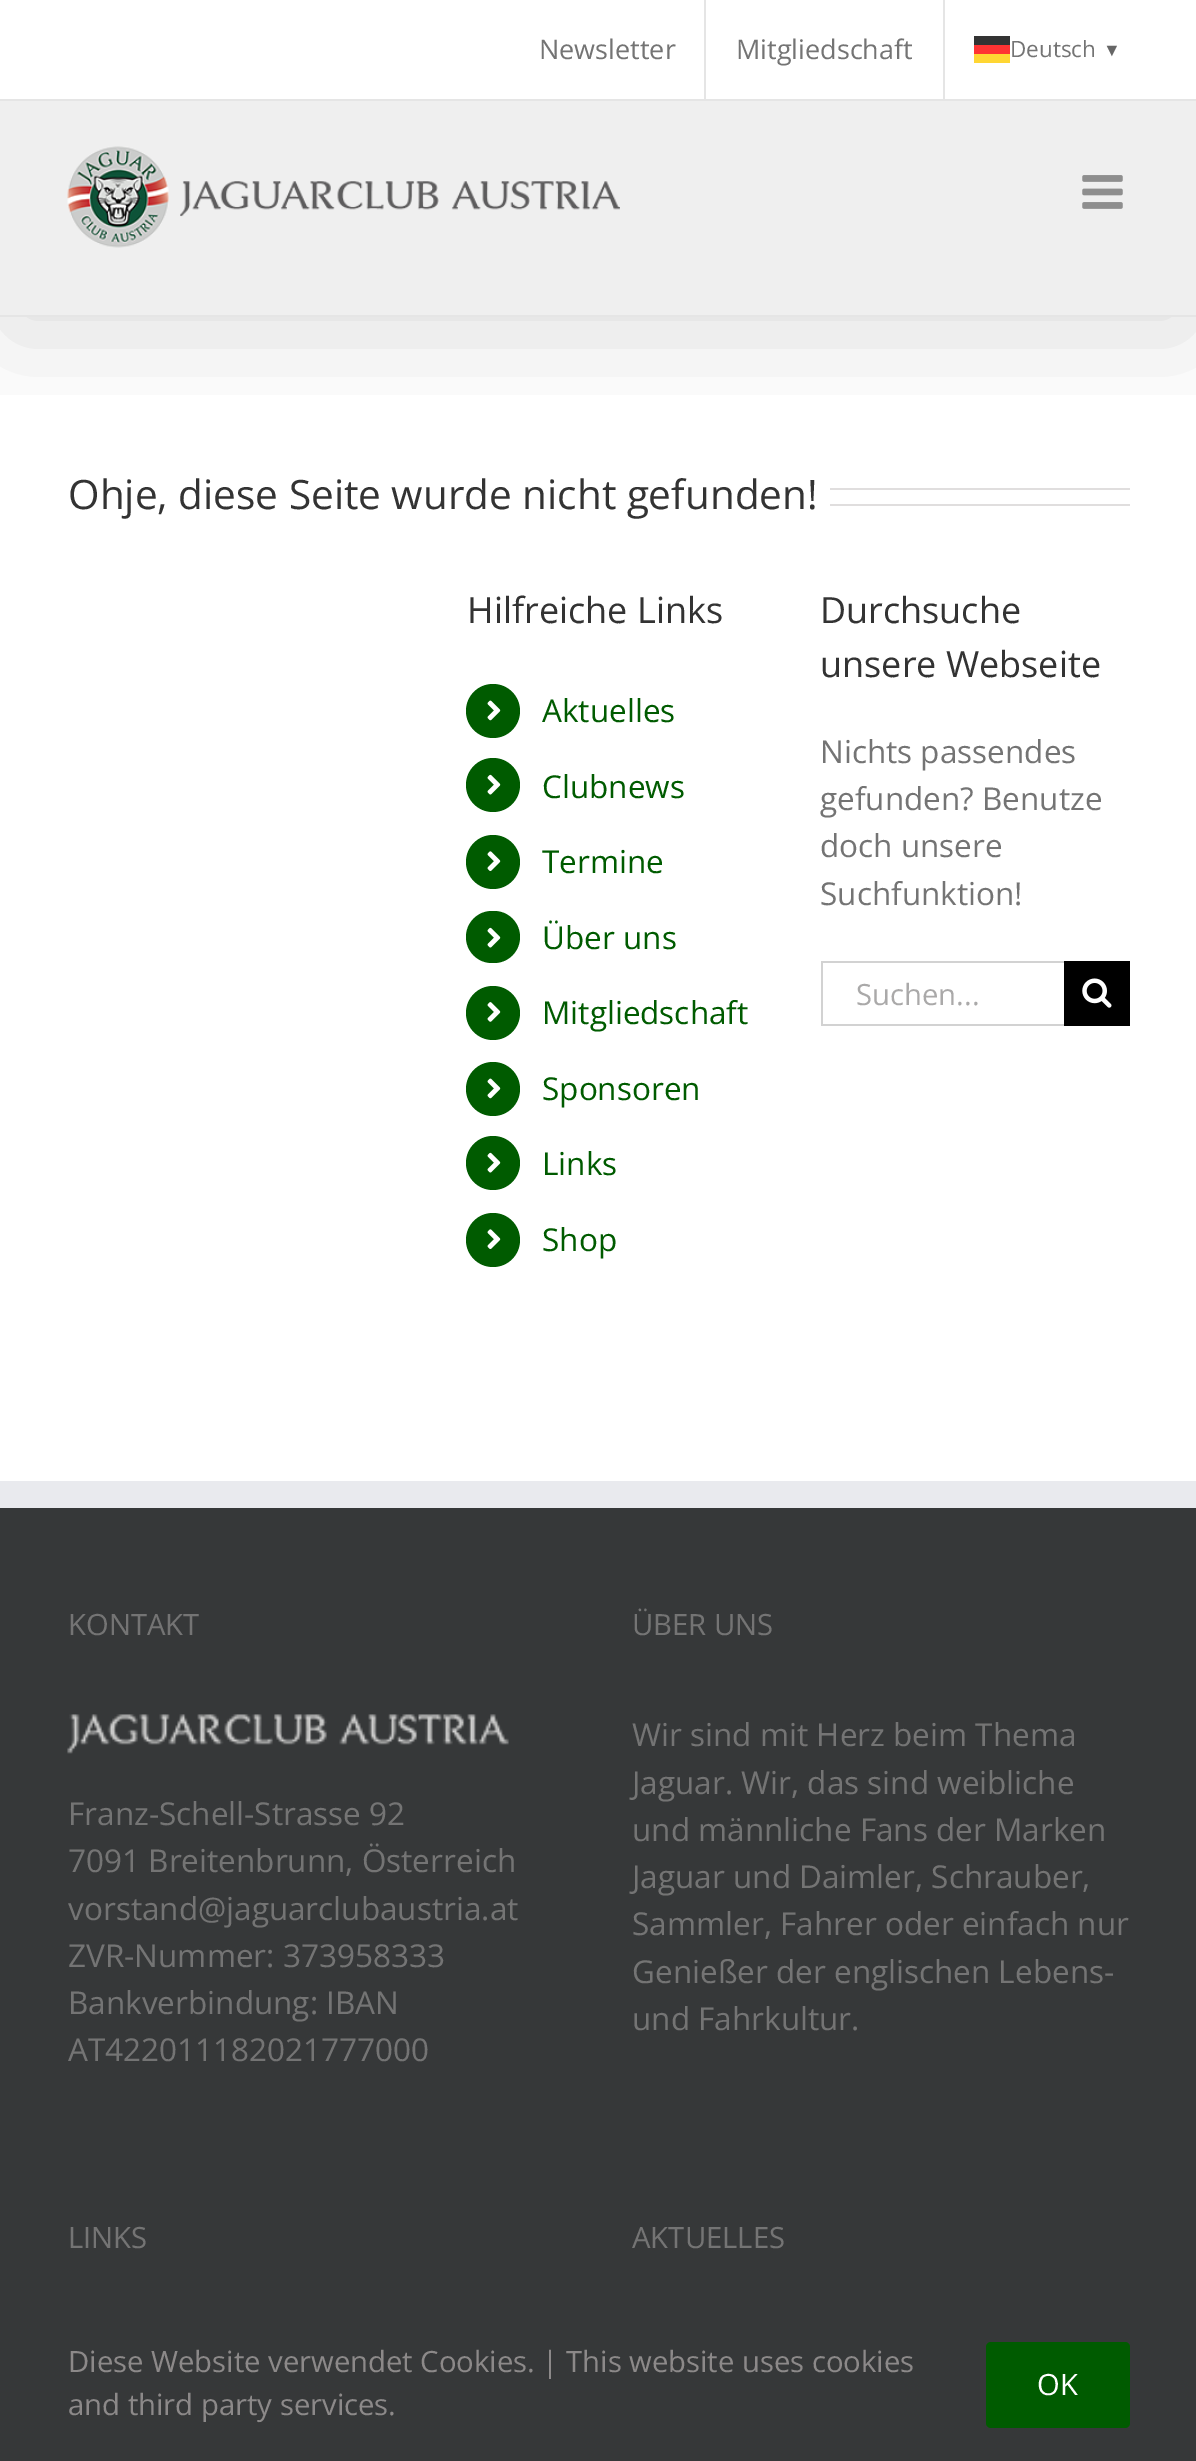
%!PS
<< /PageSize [1196 2461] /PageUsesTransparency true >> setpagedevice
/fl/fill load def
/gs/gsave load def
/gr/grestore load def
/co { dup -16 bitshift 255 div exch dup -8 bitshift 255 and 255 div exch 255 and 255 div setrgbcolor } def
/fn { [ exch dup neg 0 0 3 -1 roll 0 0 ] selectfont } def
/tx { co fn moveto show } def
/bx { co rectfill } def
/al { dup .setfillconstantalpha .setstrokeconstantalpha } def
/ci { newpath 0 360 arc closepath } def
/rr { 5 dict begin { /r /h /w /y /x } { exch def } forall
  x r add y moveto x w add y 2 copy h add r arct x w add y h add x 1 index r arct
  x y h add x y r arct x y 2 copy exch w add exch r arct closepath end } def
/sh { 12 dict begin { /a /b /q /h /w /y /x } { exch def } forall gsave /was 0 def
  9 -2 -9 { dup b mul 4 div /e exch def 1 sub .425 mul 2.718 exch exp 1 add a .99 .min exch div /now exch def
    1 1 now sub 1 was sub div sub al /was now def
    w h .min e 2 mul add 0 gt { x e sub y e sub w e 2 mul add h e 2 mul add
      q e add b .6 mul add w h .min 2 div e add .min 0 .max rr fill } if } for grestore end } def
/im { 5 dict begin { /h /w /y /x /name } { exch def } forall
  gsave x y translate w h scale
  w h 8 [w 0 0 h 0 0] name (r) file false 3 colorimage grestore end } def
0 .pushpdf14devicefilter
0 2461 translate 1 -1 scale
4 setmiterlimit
0 0 1196 2461 16#FFFFFF bx
830 488 300 2 16#E0DEDE bx
gs
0 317 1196 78 rectclip
16#000000 co
5 27 1188 308 0 56 .14 sh
gr
0 99 1196 2 16#E5E5E5 bx
704 0 2 99 16#E5E5E5 bx
943 0 2 99 16#E5E5E5 bx
974 54 36 9 16#FFD633 bx
974 36 36 9 16#333333 bx
974 45 36 9 16#FF3333 bx
0 101 1196 214 16#EFEFEF bx
0 315 1196 2 16#E5E5E5 bx
(media/1.raw) 67 146 553 102 im
(media/2.raw) 1082 175 41 34 im
830 504 300 2 16#E0DEDE bx
16#005B00 co
493 711 27 ci fl
(media/3.raw) 487 700 14 21 im
493 785 27 ci fl
(media/4.raw) 487 774 14 21 im
493 862 27 ci fl
(media/5.raw) 487 851 14 20 im
466 911 54 52 26 rr fl
(media/4.raw) 487 927 14 21 im
493 1013 27 ci fl
(media/6.raw) 487 1002 14 20 im
493 1089 27 ci fl
(media/3.raw) 487 1078 14 21 im
493 1163 27 ci fl
(media/4.raw) 487 1152 14 21 im
493 1240 27 ci fl
(media/5.raw) 487 1229 14 20 im
821 961 243 2 16#D2D2D2 bx
821 1024 243 2 16#D2D2D2 bx
821 961 2 65 16#D2D2D2 bx
1064 961 66 65 16#000000 bx
(media/7.raw) 1082 978 30 30 im
0 1508 1196 953 16#363839 bx
0 1481 1196 27 16#E9EAEE bx
(media/8.raw) 67 1714 442 40 im
16#005B00 co
986 2342 144 86 5 rr fl
(Newsletter) 539 59 /OpenSans-Regular 27 16#747474 tx
(Mitgliedschaft) 736 59 /OpenSans-Regular 27 16#747474 tx
(Deutsch) 1010 57 /OpenSans-Regular 22.5 16#747474 tx
(▼) 1103 56 /LiberationSerif-Bold 18 16#666666 tx
(Ohje, diese Seite wurde nicht gefunden!) 68 509 /OpenSans-Regular 40.5 16#333333 tx
(Hilfreiche Links) 467 623 /OpenSans-Regular 36 16#333333 tx
(Aktuelles) 542 722 /OpenSans-Regular 31.5 16#005B00 tx
(Clubnews) 542 798 /OpenSans-Regular 31.5 16#005B00 tx
(Termine) 542 873 /OpenSans-Regular 31.5 16#005B00 tx
(Über uns) 542 949 /OpenSans-Regular 31.5 16#005B00 tx
(Mitgliedschaft) 542 1024 /OpenSans-Regular 31.5 16#005B00 tx
(Sponsoren) 542 1100 /OpenSans-Regular 31.5 16#005B00 tx
(Links) 542 1175 /OpenSans-Regular 31.5 16#005B00 tx
(Shop) 542 1251 /OpenSans-Regular 31.5 16#005B00 tx
(Durchsuche) 820 623 /OpenSans-Regular 36 16#333333 tx
(unsere Webseite) 820 677 /OpenSans-Regular 36 16#333333 tx
(Nichts passendes) 820 763 /OpenSans-Regular 31.5 16#747474 tx
(gefunden? Benutze) 820 810 /OpenSans-Regular 31.5 16#747474 tx
(doch unsere) 820 857 /OpenSans-Regular 31.5 16#747474 tx
(Suchfunktion!) 820 905 /OpenSans-Regular 31.5 16#747474 tx
(Suchen...) 856 1005 /OpenSans-Regular 29.25 16#AAA9A9 tx
(KONTAKT) 68 1635 /OpenSans-Regular 29.25 16#747474 tx
(Franz-Schell-Strasse 92) 68 1825 /OpenSans-Regular 31.5 16#747474 tx
(7091 Breitenbrunn, Österreich) 68 1872 /OpenSans-Regular 31.5 16#747474 tx
(vorstand@jaguarclubaustria.at) 68 1920 /OpenSans-Regular 31.5 16#747474 tx
(ZVR-Nummer: 373958333) 68 1967 /OpenSans-Regular 31.5 16#747474 tx
(Bankverbindung: IBAN) 68 2014 /OpenSans-Regular 31.5 16#747474 tx
(AT422011182021777000) 68 2061 /OpenSans-Regular 31.5 16#747474 tx
(ÜBER UNS) 632 1635 /OpenSans-Regular 29.25 16#747474 tx
(Wir sind mit Herz beim Thema) 632 1746 /OpenSans-Regular 31.5 16#747474 tx
(Jaguar. Wir, das sind weibliche) 632 1794 /OpenSans-Regular 31.5 16#747474 tx
(und männliche Fans der Marken) 632 1841 /OpenSans-Regular 31.5 16#747474 tx
(Jaguar und Daimler, Schrauber,) 632 1888 /OpenSans-Regular 31.5 16#747474 tx
(Sammler, Fahrer oder einfach nur) 632 1935 /OpenSans-Regular 31.5 16#747474 tx
(Genießer der englischen Lebens-) 632 1983 /OpenSans-Regular 31.5 16#747474 tx
(und Fahrkultur.) 632 2030 /OpenSans-Regular 31.5 16#747474 tx
(LINKS) 68 2248 /OpenSans-Regular 29.25 16#747474 tx
(AKTUELLES) 632 2248 /OpenSans-Regular 29.25 16#747474 tx
(Diese Website verwendet Cookies. | This website uses cookies) 68 2372 /OpenSans-Regular 29.25 16#8C8989 tx
(and third party services.) 68 2415 /OpenSans-Regular 29.25 16#8C8989 tx
(OK) 1037 2395 /OpenSans-Regular 29.25 16#FFFFFF tx
.poppdf14devicefilter showpage
